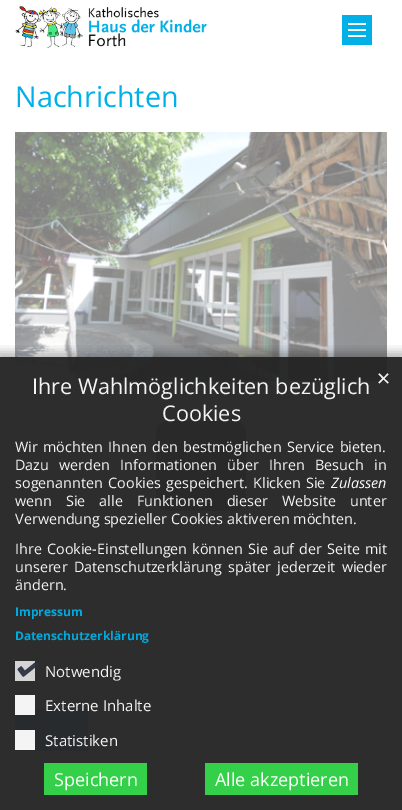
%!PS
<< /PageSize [402 810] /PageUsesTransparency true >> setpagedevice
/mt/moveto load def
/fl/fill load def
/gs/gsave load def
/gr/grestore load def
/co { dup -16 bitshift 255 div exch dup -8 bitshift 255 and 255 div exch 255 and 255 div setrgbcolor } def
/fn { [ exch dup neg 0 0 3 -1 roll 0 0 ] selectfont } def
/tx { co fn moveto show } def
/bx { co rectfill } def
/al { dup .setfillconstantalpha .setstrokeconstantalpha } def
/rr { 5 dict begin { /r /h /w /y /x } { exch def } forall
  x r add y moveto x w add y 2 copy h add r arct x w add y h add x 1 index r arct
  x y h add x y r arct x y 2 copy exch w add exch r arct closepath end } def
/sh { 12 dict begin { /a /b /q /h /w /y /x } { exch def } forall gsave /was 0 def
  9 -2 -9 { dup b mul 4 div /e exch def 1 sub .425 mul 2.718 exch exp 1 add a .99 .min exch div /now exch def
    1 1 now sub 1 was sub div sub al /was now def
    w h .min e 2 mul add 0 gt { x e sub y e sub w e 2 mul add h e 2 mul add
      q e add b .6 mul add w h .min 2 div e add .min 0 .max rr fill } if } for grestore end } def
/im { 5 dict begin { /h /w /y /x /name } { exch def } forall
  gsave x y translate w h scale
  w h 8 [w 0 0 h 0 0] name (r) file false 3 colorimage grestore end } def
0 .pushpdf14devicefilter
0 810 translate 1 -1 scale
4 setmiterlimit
0 0 402 810 16#FFFFFF bx
(media/1.raw) 15 6 192 42 im
342 15 30 30 16#00B0E6 bx
348 29 18 2 16#FFFFFF bx
348 23 18 2 16#FFFFFF bx
348 35 18 2 16#FFFFFF bx
(media/2.raw) 15 132 372 249 im
15 709 73 42 16#80D8F3 bx
16#ACACAC co
156 421 90 90 12 rr fl
(media/3.raw) 187 451 28 29 im
gs
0 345 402 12 rectclip
16#000000 co
-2 352 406 457 0 5 .28 sh
gr
0.95 al
0 357 402 453 16#222222 bx
15 661 20 20 16#DDDDDD bx
1 al
(media/4.raw) 17 661 22 16 im
0.95 al
15 695 20 20 16#FFFFFF bx
15 730 20 20 16#FFFFFF bx
1 al
44 763 103 32 16#34D049 bx
205 763 153 32 16#34D049 bx
(Nachrichten) 15 107 /OpenSans-Regular 28.75 16#00B0E6 tx
(Ihre Wahlmöglichkeiten bezüglich) 32 394 /OpenSans-Regular 21.6 16#F4F4F4 tx
(Cookies) 162 421 /OpenSans-Regular 21.6 16#F4F4F4 tx
(✕) 376 385 /DejaVuSans-Regular 18 16#F4F4F4 tx
/OpenSans-Regular 14.4 fn
15 452 mt 1.5 0 32 (Wir möchten Ihnen den bestmöglichen Service bieten.) widthshow
15 470 mt 6.5 0 32 (Dazu werden Informationen über Ihren Besuch in) widthshow
15 488 mt 1.5 0 32 (sogenannten Cookies gespeichert. Klicken Sie) widthshow
(Zulassen) 331 488 /OpenSans-Italic 14.4 16#FFFFFF tx
/OpenSans-Regular 14.4 fn
16#F4F4F4 co
15 506 mt 10.25 0 32 (wenn Sie alle Funktionen dieser Website unter) widthshow
(Verwendung spezieller Cookies aktiveren möchten.) 15 524 /OpenSans-Regular 14.4 16#F4F4F4 tx
15 554 mt 1.25 0 32 (Ihre Cookie-Einstellungen können Sie auf der Seite mit) widthshow
15 572 mt 2.5 0 32 (unserer Datenschutzerklärung später jederzeit wieder) widthshow
(ändern.) 15 590 /OpenSans-Regular 14.4 16#F4F4F4 tx
(Impressum) 15 616 /OpenSans-Bold 12 16#02A9DD tx
(Datenschutzerklärung) 15 640 /OpenSans-Bold 12 16#02A9DD tx
(Notwendig) 45 677 /OpenSans-Regular 15 16#F4F4F4 tx
(Externe Inhalte) 45 711 /OpenSans-Regular 15 16#F4F4F4 tx
(Statistiken) 45 746 /OpenSans-Regular 15 16#F4F4F4 tx
(Speichern) 54 786 /OpenSans-Regular 18 16#FFFFFF tx
(Alle akzeptieren) 215 786 /OpenSans-Regular 18 16#FFFFFF tx
.poppdf14devicefilter showpage
